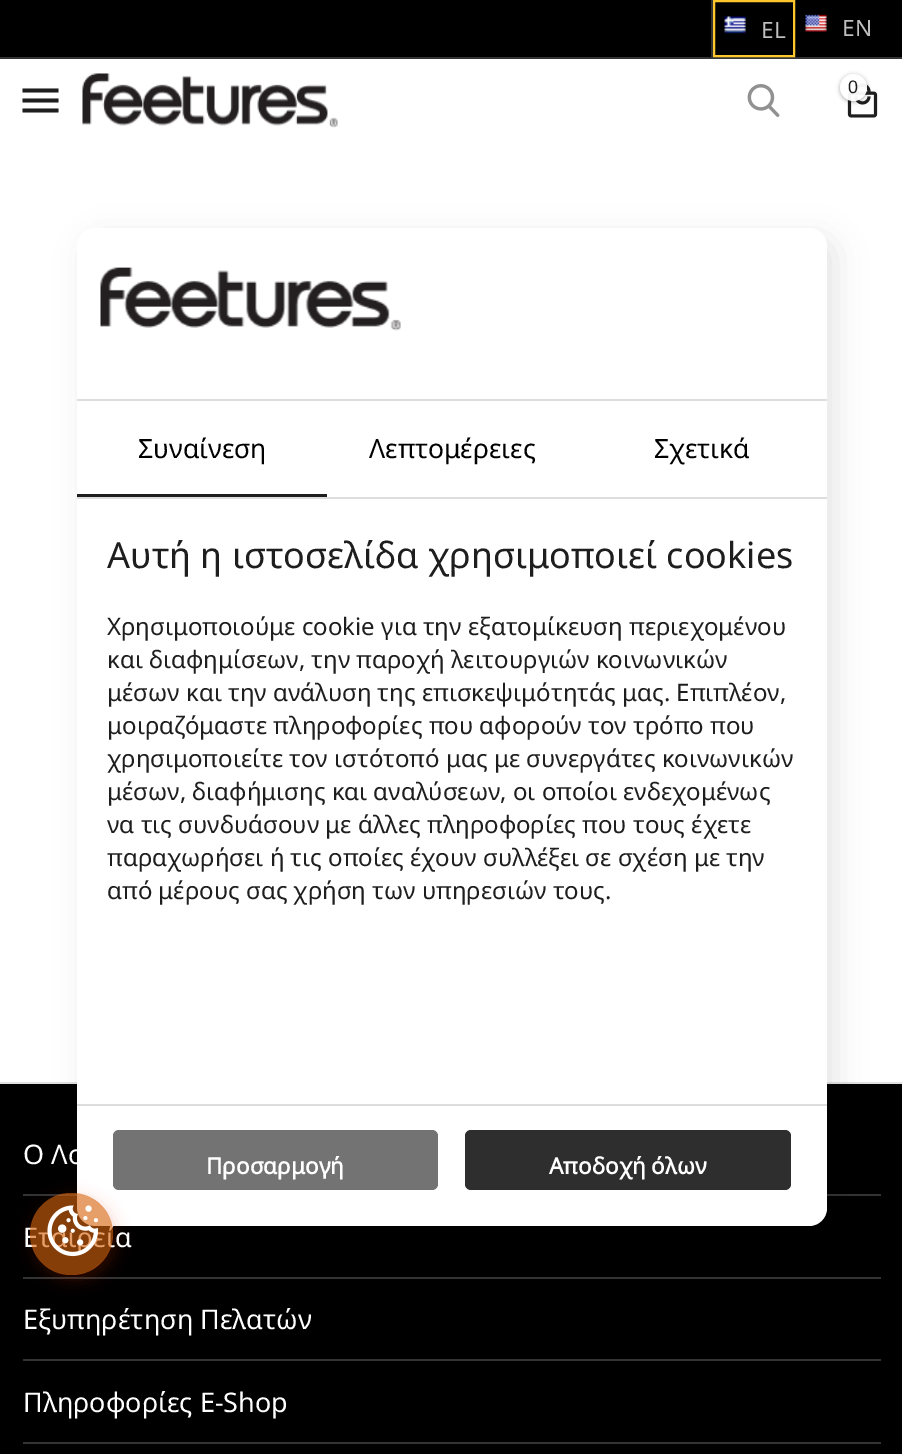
%!PS
<< /PageSize [902 1454] /PageUsesTransparency true >> setpagedevice
/mt/moveto load def
/li/lineto load def
/ct/curveto load def
/cp/closepath load def
/fl/fill load def
/gs/gsave load def
/gr/grestore load def
/lw/setlinewidth load def
/co { dup -16 bitshift 255 div exch dup -8 bitshift 255 and 255 div exch 255 and 255 div setrgbcolor } def
/fn { [ exch dup neg 0 0 3 -1 roll 0 0 ] selectfont } def
/tx { co fn moveto show } def
/bx { co rectfill } def
/al { dup .setfillconstantalpha .setstrokeconstantalpha } def
/ci { newpath 0 360 arc closepath } def
/rr { 5 dict begin { /r /h /w /y /x } { exch def } forall
  x r add y moveto x w add y 2 copy h add r arct x w add y h add x 1 index r arct
  x y h add x y r arct x y 2 copy exch w add exch r arct closepath end } def
/sh { 12 dict begin { /a /b /q /h /w /y /x } { exch def } forall gsave /was 0 def
  9 -2 -9 { dup b mul 4 div /e exch def 1 sub .425 mul 2.718 exch exp 1 add a .99 .min exch div /now exch def
    1 1 now sub 1 was sub div sub al /was now def
    w h .min e 2 mul add 0 gt { x e sub y e sub w e 2 mul add h e 2 mul add
      q e add b .6 mul add w h .min 2 div e add .min 0 .max rr fill } if } for grestore end } def
/im { 5 dict begin { /h /w /y /x /name } { exch def } forall
  gsave x y translate w h scale
  w h 8 [w 0 0 h 0 0] name (r) file false 3 colorimage grestore end } def
0 .pushpdf14devicefilter
0 1454 translate 1 -1 scale
4 setmiterlimit
0 0 902 1454 16#FFFFFF bx
0 0 902 57 16#000000 bx
0 57 902 2 16#333333 bx
711 0 2 57 16#333333 bx
16#FFC72C co
2 lw
714 1 80 55 rectstroke
(media/1.raw) 724 16 22 18 im
(media/2.raw) 805 14 22 18 im
16#1E1E1E co
22.5 112.5 mt 58.5 112.5 li 58.5 108.5 li 22.5 108.5 li cp 22.5 102.5 mt 58.5 102.5 li 58.5 98.5 li 22.5 98.5 li cp 22.5 88.5 mt 22.5 92.5 li 58.5 92.5 li 58.5 88.5 li cp fl
(media/3.raw) 82 73 256 55 im
(media/4.raw) 747 84 33 33 im
(media/5.raw) 847 83 31 35 im
gs
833 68 mt 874 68 li 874 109 li 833 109 li cp 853.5 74 mt 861 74 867 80 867 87.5 ct 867 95 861 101 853.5 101 ct 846 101 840 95 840 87.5 ct 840 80 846 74 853.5 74 ct cp eoclip newpath
840 75 27 27 13.5 2 .35 sh
gr
0.95 al
16#FFFFFF co
853.5 87.5 13.5 ci fl
1 al
0 1084 902 370 16#000000 bx
0 1082 902 2 16#E1E1E1 bx
23 1194 858 2 16#333333 bx
23 1277 858 2 16#333333 bx
23 1359 858 2 16#333333 bx
23 1442 858 2 16#333333 bx
16#000000 co
86 237 750 998 18 15 .1 sh
16#FFFFFF co
77 228 750 998 18 rr fl
(media/6.raw) 100 267 301 64 im
77 399 750 2 16#DDDDDD bx
77 497 750 2 16#DDDDDD bx
77 494 250 3 16#1E1E1E bx
77 1104 750 2 16#DDDDDD bx
16#737373 co
113 1130 325 60 6 rr fl
16#2E2E2E co
465 1130 326 60 6 rr fl
gs
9 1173 mt 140 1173 li 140 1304 li 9 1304 li cp 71 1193 mt 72 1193 li 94.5 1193 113 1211.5 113 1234 ct 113 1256.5 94.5 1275 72 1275 ct 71 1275 li 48.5 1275 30 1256.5 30 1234 ct 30 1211.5 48.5 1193 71 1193 ct cp eoclip newpath
16#DB3C0A co
33 1197 83 83 41.5 7.5 .2 sh
gr
(EL) 761 38 /NotoSans-Regular 22.5 16#BFBFBF tx
(EN) 842 36 /NotoSans-Regular 22.5 16#BFBFBF tx
(0) 848 93 /LiberationSans-Regular 18 16#1E1E1E tx
(Ο Λο) 23 1164 /NotoSans-Regular 27 16#FFFFFF tx
(Εταιρεία) 23 1247 /NotoSans-Regular 27 16#FFFFFF tx
(Εξυπηρέτηση Πελατών) 23 1329 /NotoSans-Regular 27 16#FFFFFF tx
(Πληροφορίες E-Shop) 23 1412 /NotoSans-Regular 27 16#FFFFFF tx
(Συναίνεση) 138 458 /NotoSans-Regular 26.5 16#000000 tx
(Λεπτομέρειες) 369 458 /NotoSans-Regular 26.5 16#000000 tx
(Σχετικά) 654 458 /NotoSans-Regular 26.5 16#000000 tx
(Αυτή η ιστοσελίδα χρησιμοποιεί cookies) 107 568 /NotoSans-Regular 36 16#1E1E1E tx
(Χρησιμοποιούμε cookie για την εξατομίκευση περιεχομένου) 107 635 /NotoSans-Regular 24 16#1E1E1E tx
(και διαφημίσεων, την παροχή λειτουργιών κοινωνικών) 107 668 /NotoSans-Regular 24 16#1E1E1E tx
(μέσων και την ανάλυση της επισκεψιμότητάς μας. Επιπλέον,) 107 701 /NotoSans-Regular 24 16#1E1E1E tx
(μοιραζόμαστε πληροφορίες που αφορούν τον τρόπο που) 107 734 /NotoSans-Regular 24 16#1E1E1E tx
(χρησιμοποιείτε τον ιστότοπό μας με συνεργάτες κοινωνικών) 107 767 /NotoSans-Regular 24 16#1E1E1E tx
(μέσων, διαφήμισης και αναλύσεων, οι οποίοι ενδεχομένως) 107 800 /NotoSans-Regular 24 16#1E1E1E tx
(να τις συνδυάσουν με άλλες πληροφορίες που τους έχετε) 107 833 /NotoSans-Regular 24 16#1E1E1E tx
(παραχωρήσει ή τις οποίες έχουν συλλέξει σε σχέση με την) 107 866 /NotoSans-Regular 24 16#1E1E1E tx
(από μέρους σας χρήση των υπηρεσιών τους.) 107 899 /NotoSans-Regular 24 16#1E1E1E tx
(Προσαρμογή) 206 1174 /NotoSans-Bold 22.5 16#FFFFFF tx
(Αποδοχή όλων) 549 1174 /NotoSans-Bold 22.5 16#FFFFFF tx
0.62 al
16#D7640D co
30 1193 83 82 41 rr fl
1 al
(media/7.raw) 47 1205 52 52 im
.poppdf14devicefilter showpage
